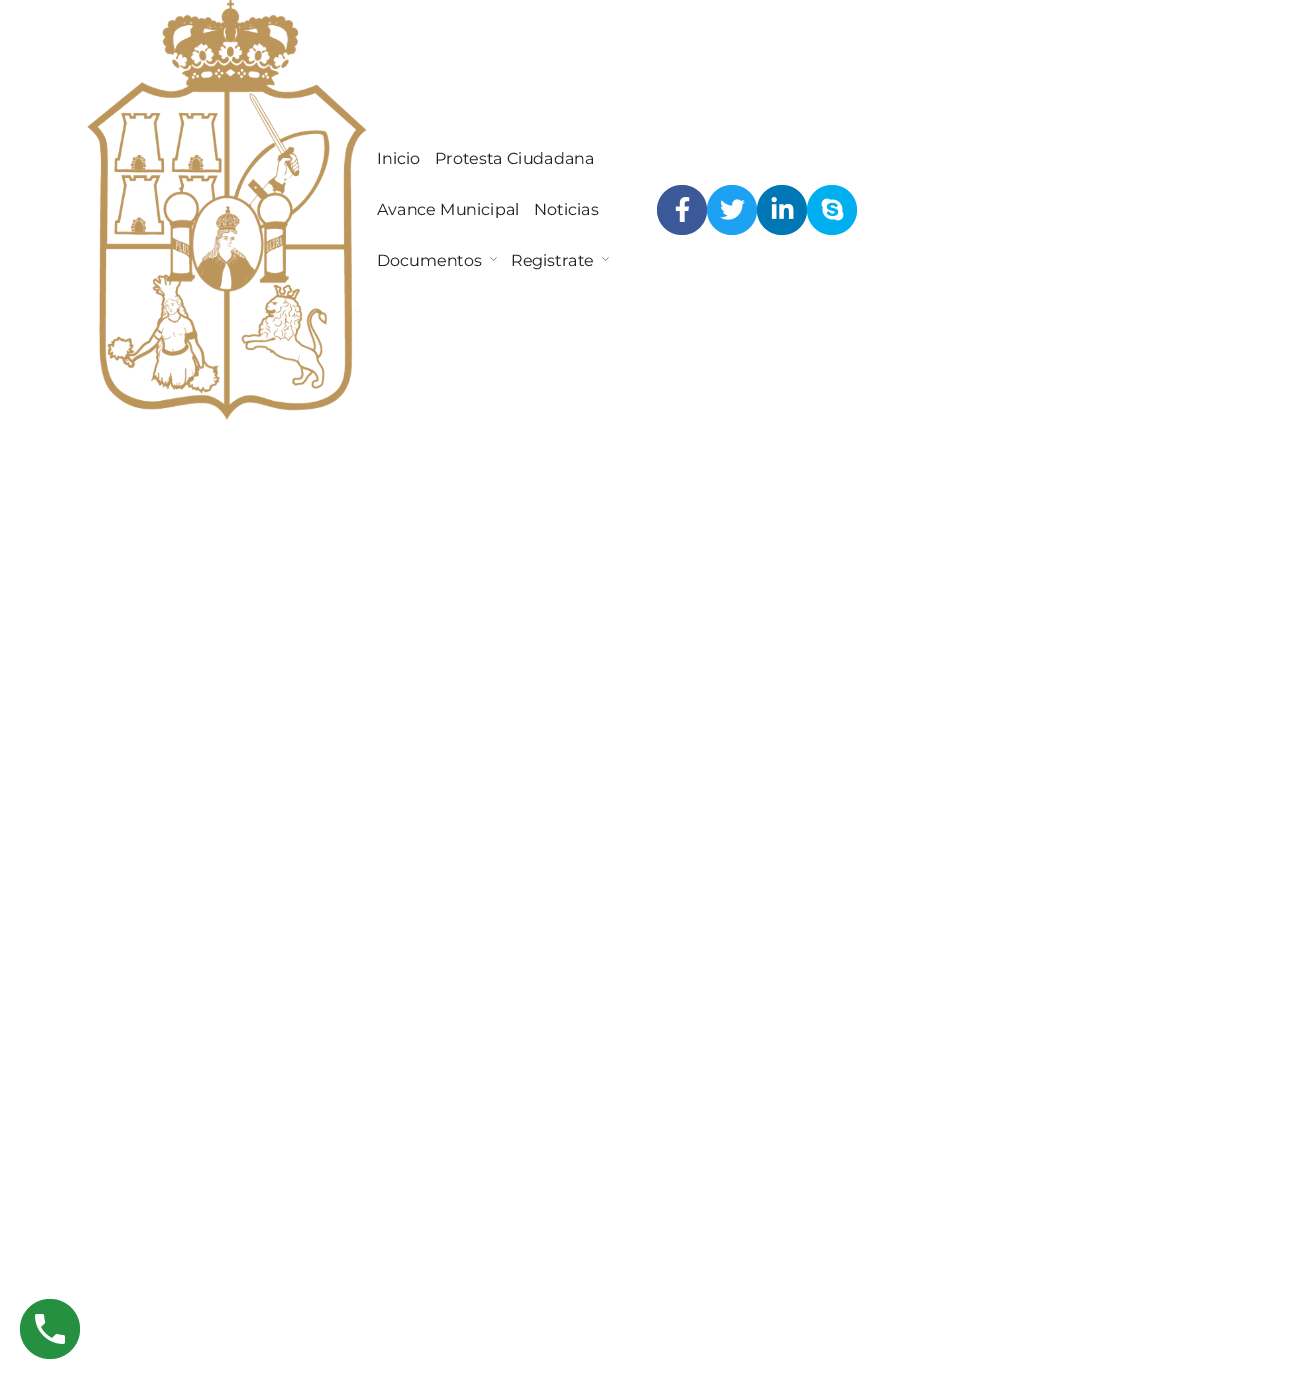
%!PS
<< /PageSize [1314 1379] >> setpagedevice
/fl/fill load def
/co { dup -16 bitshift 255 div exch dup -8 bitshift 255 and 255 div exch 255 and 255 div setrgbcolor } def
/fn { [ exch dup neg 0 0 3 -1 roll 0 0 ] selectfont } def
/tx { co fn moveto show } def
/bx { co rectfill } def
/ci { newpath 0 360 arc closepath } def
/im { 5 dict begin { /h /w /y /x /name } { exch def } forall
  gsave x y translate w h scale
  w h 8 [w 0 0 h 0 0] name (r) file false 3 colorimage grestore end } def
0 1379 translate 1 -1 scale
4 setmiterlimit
0 0 1314 1379 16#FFFFFF bx
(media/1.raw) 87 0 280 420 im
(media/2.raw) 490 257 7 4 im
(media/2.raw) 602 257 7 4 im
16#3B5998 co
682 210 25 ci fl
(media/3.raw) 675 197 15 25 im
16#1DA1F2 co
732 210 25 ci fl
(media/4.raw) 720 199 25 21 im
16#0077B5 co
782 210 25 ci fl
(media/5.raw) 771 197 23 22 im
16#00AFF0 co
832 210 25 ci fl
(media/6.raw) 821 198 23 23 im
16#269041 co
50 1329 30 ci fl
(media/7.raw) 35 1314 30 30 im
(Inicio) 377 164 /Montserrat-Regular 16 16#222222 tx
(Protesta Ciudadana) 435 164 /Montserrat-Regular 16 16#222222 tx
(Avance Municipal) 377 215 /Montserrat-Regular 16 16#222222 tx
(Noticias) 534 215 /Montserrat-Regular 16 16#222222 tx
(Documentos) 377 266 /Montserrat-Regular 16 16#222222 tx
(Registrate) 511 266 /Montserrat-Regular 16 16#222222 tx
showpage
